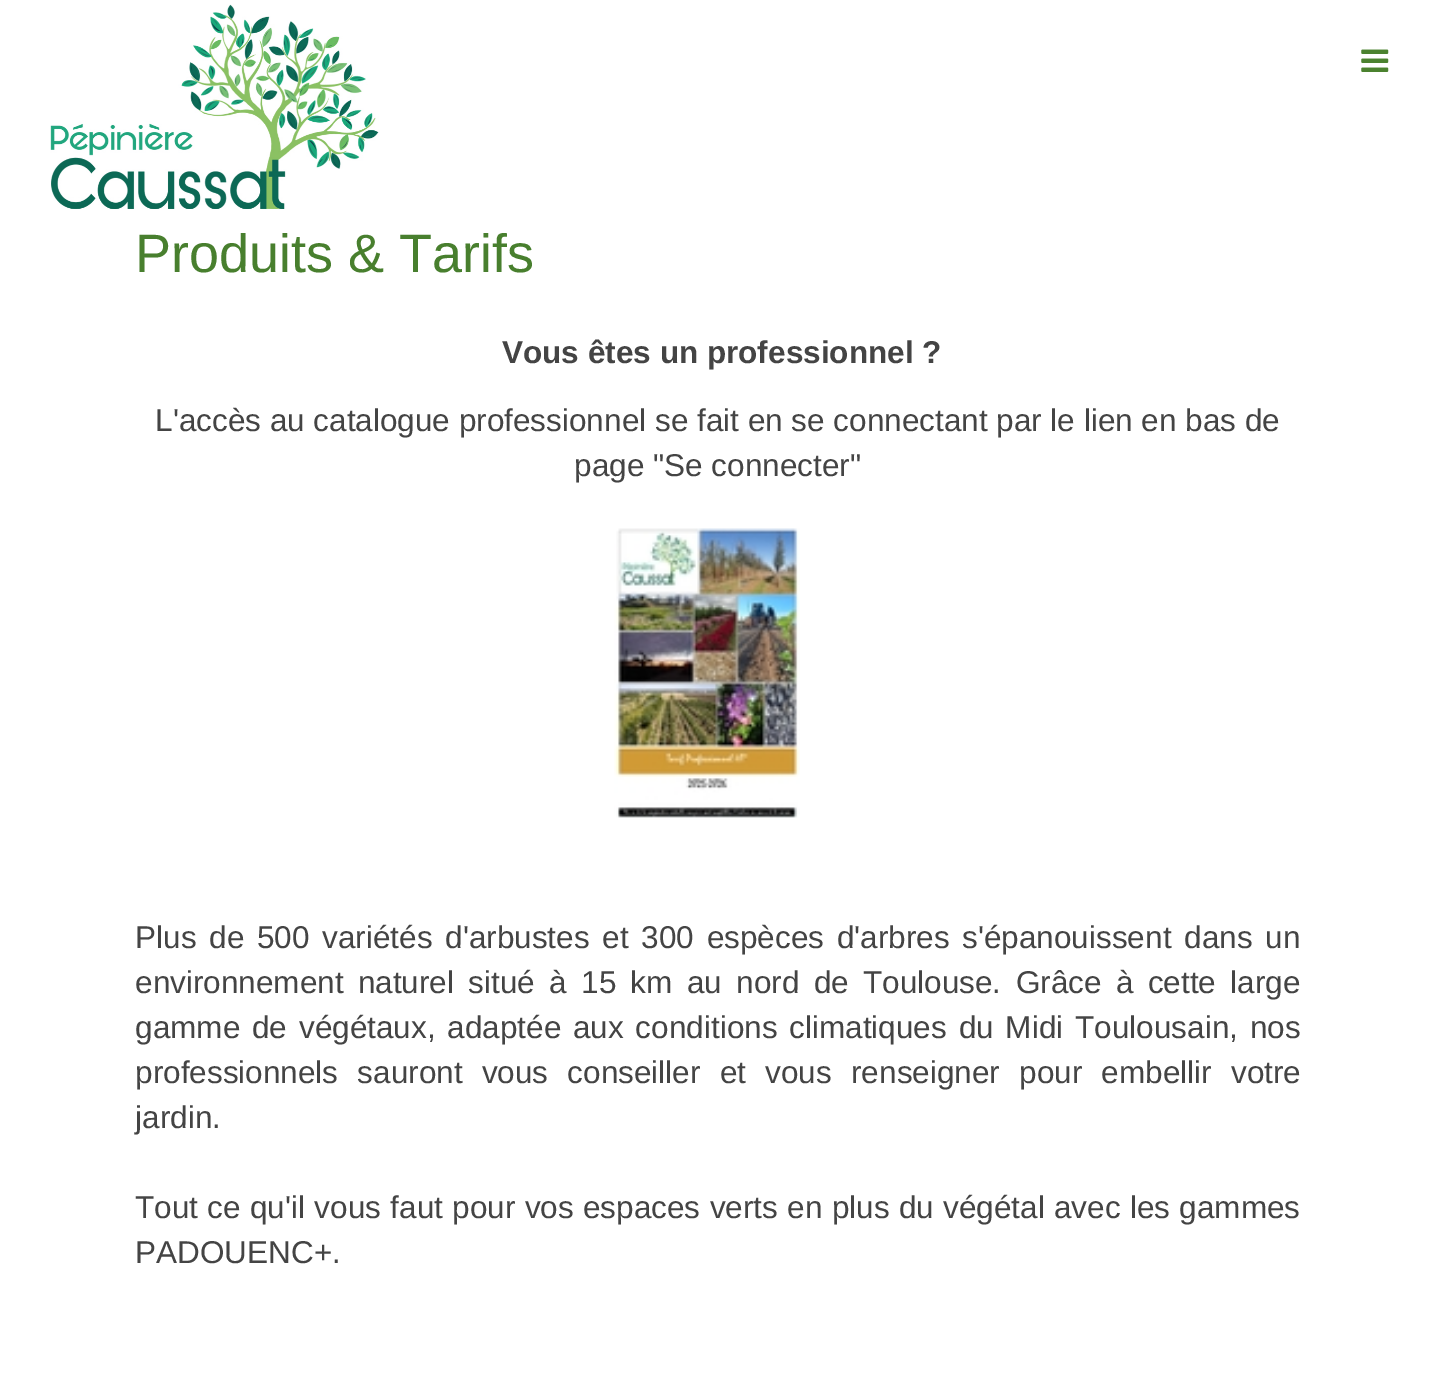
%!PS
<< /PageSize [1435 1396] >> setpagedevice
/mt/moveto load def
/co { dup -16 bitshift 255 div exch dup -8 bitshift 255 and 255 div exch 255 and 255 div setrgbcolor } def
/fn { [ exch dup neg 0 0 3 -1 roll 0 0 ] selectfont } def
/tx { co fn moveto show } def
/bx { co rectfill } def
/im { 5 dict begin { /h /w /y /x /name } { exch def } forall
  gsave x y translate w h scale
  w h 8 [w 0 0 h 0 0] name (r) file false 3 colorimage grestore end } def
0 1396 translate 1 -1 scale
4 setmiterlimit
0 0 1435 1396 16#FFFFFF bx
(media/1.raw) 50 4 329 205 im
(media/2.raw) 1361 49 28 23 im
(media/3.raw) 614 528 186 290 im
(Produits & Tarifs) 135 272 /LiberationSans-Regular 54 16#487F2E tx
(Vous êtes un professionnel ?) 502 363 /LiberationSans-Bold 31.5 16#444444 tx
(L'accès au catalogue professionnel se fait en se connectant par le lien en bas de) 155 431 /LiberationSans-Regular 31.5 16#444444 tx
(page "Se connecter") 574 476 /LiberationSans-Regular 31.5 16#444444 tx
135 948 mt 4 0 32 (Plus de 500 variétés d'arbustes et 300 espèces d'arbres s'épanouissent dans un) widthshow
135 993 mt 5.6 0 32 (environnement naturel situé à 15 km au nord de Toulouse. Grâce à cette large) widthshow
135 1038 mt 3.1 0 32 (gamme de végétaux, adaptée aux conditions climatiques du Midi Toulousain, nos) widthshow
135 1083 mt 10.5 0 32 (professionnels sauront vous conseiller et vous renseigner pour embellir votre) widthshow
(jardin.) 135 1128 /LiberationSans-Regular 31.5 16#444444 tx
135 1218 mt .6 0 32 (Tout ce qu'il vous faut pour vos espaces verts en plus du végétal avec les gammes) widthshow
(PADOUENC+.) 135 1263 /LiberationSans-Regular 31.5 16#444444 tx
showpage
